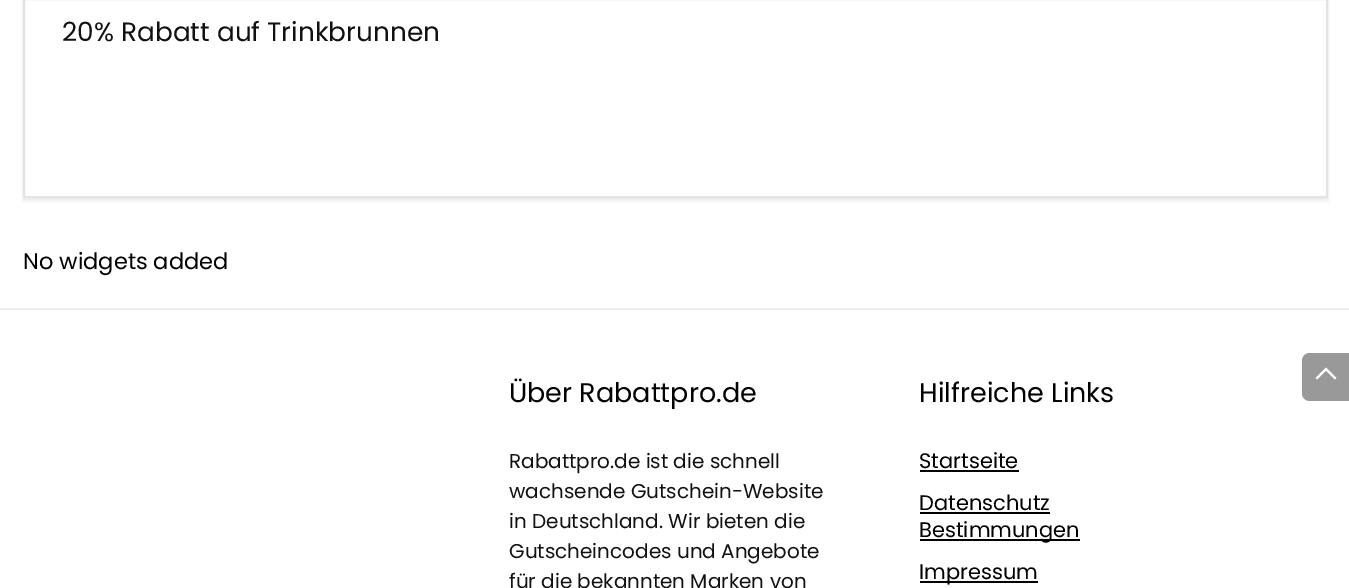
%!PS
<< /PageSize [1349 588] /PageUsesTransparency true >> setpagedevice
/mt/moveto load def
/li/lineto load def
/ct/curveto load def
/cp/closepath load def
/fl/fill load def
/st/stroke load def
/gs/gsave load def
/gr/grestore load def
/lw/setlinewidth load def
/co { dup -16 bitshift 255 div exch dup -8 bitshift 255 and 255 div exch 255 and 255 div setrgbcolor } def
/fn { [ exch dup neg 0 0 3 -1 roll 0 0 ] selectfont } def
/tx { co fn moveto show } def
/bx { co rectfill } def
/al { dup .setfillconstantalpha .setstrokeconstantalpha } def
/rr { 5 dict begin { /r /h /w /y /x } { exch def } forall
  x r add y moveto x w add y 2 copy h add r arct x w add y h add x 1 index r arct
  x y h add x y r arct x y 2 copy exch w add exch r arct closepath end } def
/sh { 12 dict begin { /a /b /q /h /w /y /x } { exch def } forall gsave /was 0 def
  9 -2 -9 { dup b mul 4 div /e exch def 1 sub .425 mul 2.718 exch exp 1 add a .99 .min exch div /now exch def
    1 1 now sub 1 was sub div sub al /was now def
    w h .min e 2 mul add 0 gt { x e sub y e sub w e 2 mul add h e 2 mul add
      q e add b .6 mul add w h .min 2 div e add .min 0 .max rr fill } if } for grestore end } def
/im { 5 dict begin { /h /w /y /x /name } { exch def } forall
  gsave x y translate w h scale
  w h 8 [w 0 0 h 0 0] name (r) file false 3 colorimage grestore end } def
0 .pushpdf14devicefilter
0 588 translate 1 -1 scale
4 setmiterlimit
0 0 1349 588 16#FFFFFF bx
16#ECECEC co
23 -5 1305 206 0 1.5 1 sh
16#FFFFFF co
24 -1 mt 1327 -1 li 1327 197 li 24 197 li cp gs fl gr
16#E3E3E3 co
2 lw
st
0 308 1349 2 16#EEEEEE bx
920 470 99 2 16#000000 bx
920 512 130 2 16#000000 bx
920 539 160 2 16#000000 bx
920 581 118 2 16#000000 bx
16#999999 co
1310 353 mt 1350 353 li 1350 401 li 1310 401 li 1305.5 401 1302 397.5 1302 393 ct 1302 361 li 1302 356.5 1305.5 353 1310 353 ct cp fl
(media/1.raw) 1315 367 22 13 im
(20% Rabatt auf Trinkbrunnen) 62 41 /Poppins-Regular 26.4 16#111111 tx
(No widgets added) 23 269 /Poppins-Regular 22.5 16#000000 tx
(Über Rabattpro.de) 509 402 /Poppins-Regular 27 16#000000 tx
(Rabattpro.de ist die schnell) 509 468 /Poppins-Regular 20 16#111111 tx
(wachsende Gutschein-Website) 509 498 /Poppins-Regular 20 16#111111 tx
(in Deutschland. Wir bieten die) 509 528 /Poppins-Regular 20 16#111111 tx
(Gutscheincodes und Angebote) 509 558 /Poppins-Regular 20 16#111111 tx
(für die bekannten Marken von) 509 588 /Poppins-Regular 20 16#111111 tx
(Hilfreiche Links) 919 402 /Poppins-Regular 27 16#000000 tx
(Startseite) 919 468 /Poppins-Regular 21 16#000000 tx
(Datenschutz) 919 510 /Poppins-Regular 21 16#000000 tx
(Bestimmungen) 919 537 /Poppins-Regular 21 16#000000 tx
(Impressum) 919 579 /Poppins-Regular 21 16#000000 tx
.poppdf14devicefilter showpage
